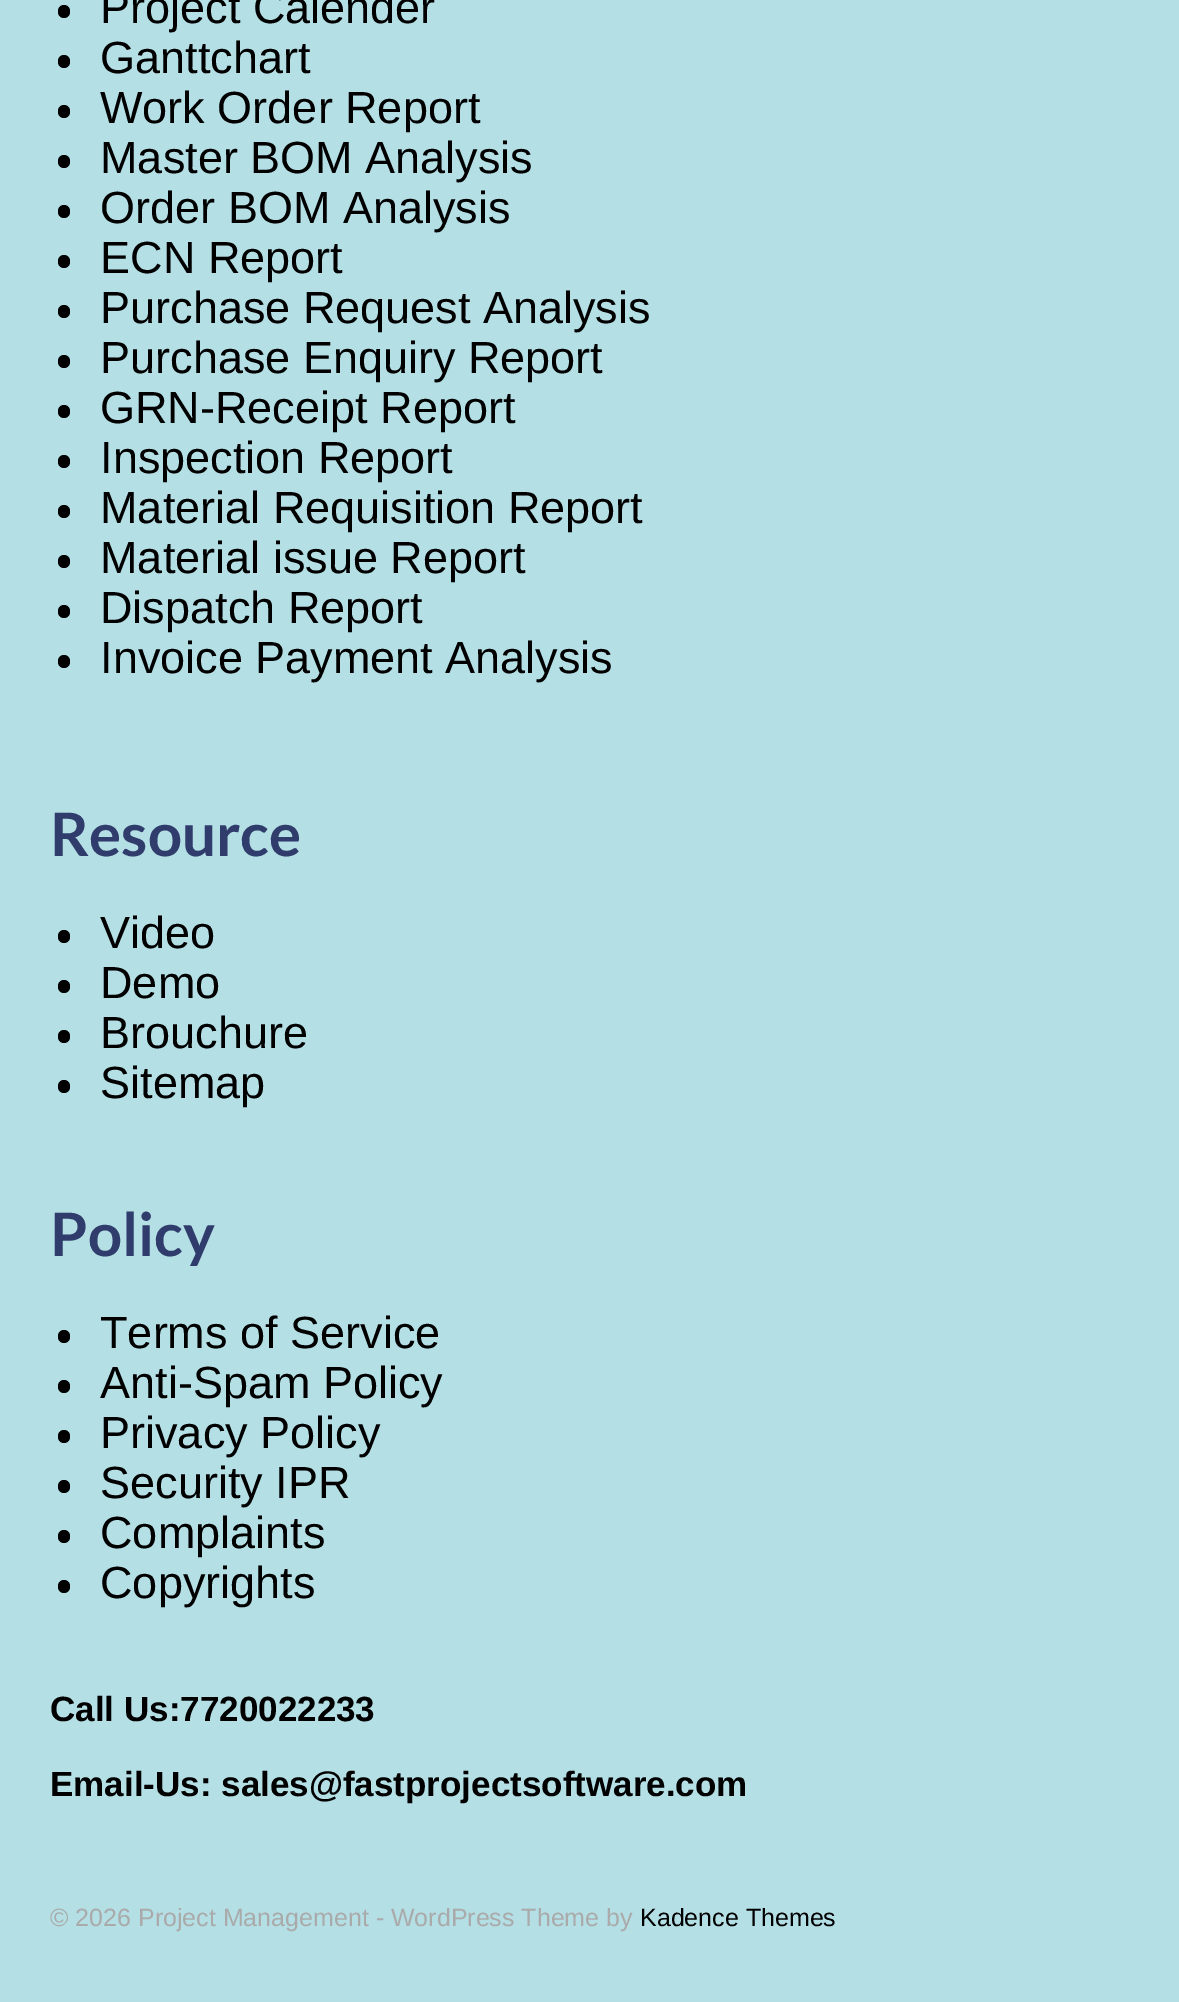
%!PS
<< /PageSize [1179 2002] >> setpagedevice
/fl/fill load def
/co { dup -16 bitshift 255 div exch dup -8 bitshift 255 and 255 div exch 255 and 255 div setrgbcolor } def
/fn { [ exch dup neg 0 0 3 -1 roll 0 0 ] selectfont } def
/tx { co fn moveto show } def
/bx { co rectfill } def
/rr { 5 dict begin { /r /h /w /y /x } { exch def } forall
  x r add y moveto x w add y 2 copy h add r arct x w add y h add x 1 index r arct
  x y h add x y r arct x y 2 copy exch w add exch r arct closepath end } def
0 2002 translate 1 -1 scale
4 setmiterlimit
0 0 1179 2002 16#B4DFE5 bx
16#000000 co
58 5 12 13 6 rr fl
58 55 12 13 6 rr fl
58 105 12 13 6 rr fl
58 155 12 13 6 rr fl
58 205 12 13 6 rr fl
58 255 12 13 6 rr fl
58 305 12 13 6 rr fl
58 355 12 13 6 rr fl
58 405 12 13 6 rr fl
58 455 12 13 6 rr fl
58 505 12 13 6 rr fl
58 555 12 13 6 rr fl
58 605 12 13 6 rr fl
58 655 12 13 6 rr fl
58 930 12 13 6 rr fl
58 980 12 13 6 rr fl
58 1030 12 13 6 rr fl
58 1080 12 13 6 rr fl
58 1330 12 13 6 rr fl
58 1380 12 13 6 rr fl
58 1430 12 13 6 rr fl
58 1480 12 13 6 rr fl
58 1530 12 13 6 rr fl
58 1580 12 13 6 rr fl
(Project Calender) 100 23 /LiberationSans-Regular 45 16#000000 tx
(Ganttchart) 100 73 /LiberationSans-Regular 45 16#000000 tx
(Work Order Report) 100 123 /LiberationSans-Regular 45 16#000000 tx
(Master BOM Analysis) 100 173 /LiberationSans-Regular 45 16#000000 tx
(Order BOM Analysis) 100 223 /LiberationSans-Regular 45 16#000000 tx
(ECN Report) 100 273 /LiberationSans-Regular 45 16#000000 tx
(Purchase Request Analysis) 100 323 /LiberationSans-Regular 45 16#000000 tx
(Purchase Enquiry Report) 100 373 /LiberationSans-Regular 45 16#000000 tx
(GRN-Receipt Report) 100 423 /LiberationSans-Regular 45 16#000000 tx
(Inspection Report) 100 473 /LiberationSans-Regular 45 16#000000 tx
(Material Requisition Report) 100 523 /LiberationSans-Regular 45 16#000000 tx
(Material issue Report) 100 573 /LiberationSans-Regular 45 16#000000 tx
(Dispatch Report) 100 623 /LiberationSans-Regular 45 16#000000 tx
(Invoice Payment Analysis) 100 673 /LiberationSans-Regular 45 16#000000 tx
(Resource) 50 856 /Lato-Bold 60 16#303C6C tx
(Video) 100 948 /LiberationSans-Regular 45 16#000000 tx
(Demo) 100 998 /LiberationSans-Regular 45 16#000000 tx
(Brouchure) 100 1048 /LiberationSans-Regular 45 16#000000 tx
(Sitemap) 100 1098 /LiberationSans-Regular 45 16#000000 tx
(Policy) 50 1256 /Lato-Bold 60 16#303C6C tx
(Terms of Service) 100 1348 /LiberationSans-Regular 45 16#000000 tx
(Anti-Spam Policy) 100 1398 /LiberationSans-Regular 45 16#000000 tx
(Privacy Policy) 100 1448 /LiberationSans-Regular 45 16#000000 tx
(Security IPR) 100 1498 /LiberationSans-Regular 45 16#000000 tx
(Complaints) 100 1548 /LiberationSans-Regular 45 16#000000 tx
(Copyrights) 100 1598 /LiberationSans-Regular 45 16#000000 tx
(Call Us:7720022233) 50 1721 /LiberationSans-Bold 35 16#000000 tx
(Email-Us: sales@fastprojectsoftware.com) 50 1796 /LiberationSans-Bold 35 16#000000 tx
(© 2026 Project Management - WordPress Theme by) 50 1926 /LiberationSans-Regular 25 16#AAAAAA tx
(Kadence Themes) 640 1926 /LiberationSans-Regular 25 16#000000 tx
showpage
